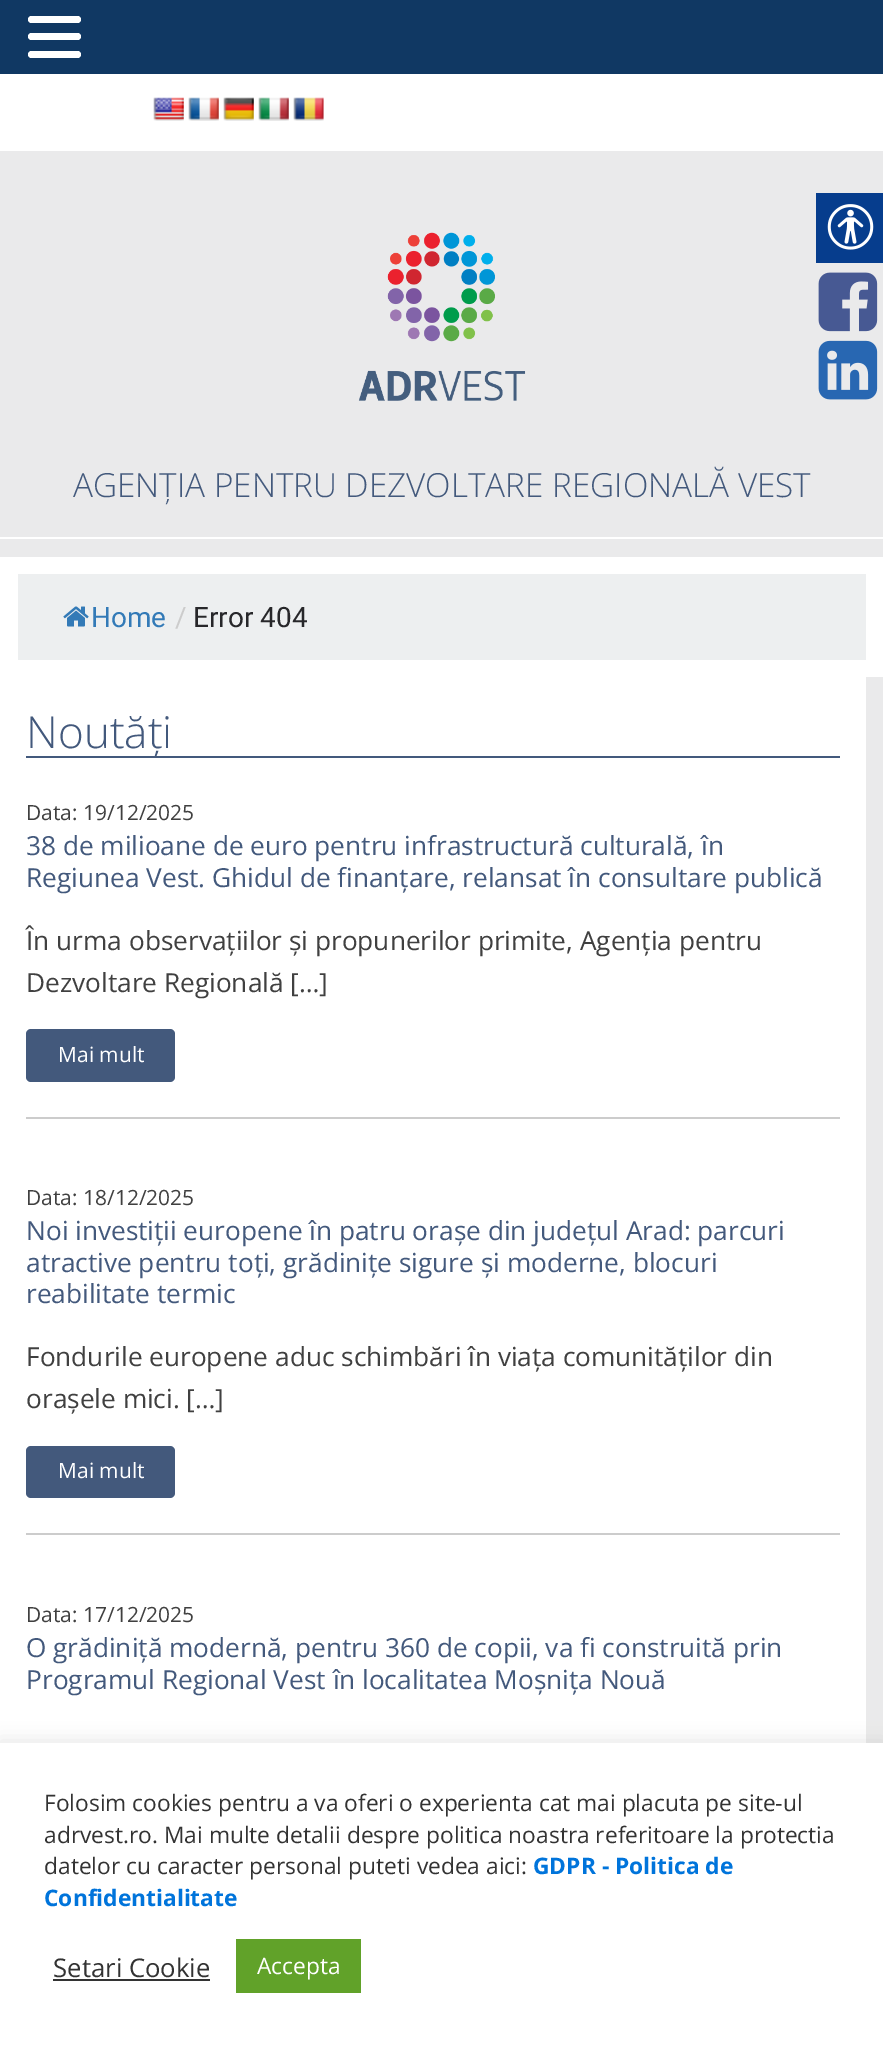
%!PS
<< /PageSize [883 2045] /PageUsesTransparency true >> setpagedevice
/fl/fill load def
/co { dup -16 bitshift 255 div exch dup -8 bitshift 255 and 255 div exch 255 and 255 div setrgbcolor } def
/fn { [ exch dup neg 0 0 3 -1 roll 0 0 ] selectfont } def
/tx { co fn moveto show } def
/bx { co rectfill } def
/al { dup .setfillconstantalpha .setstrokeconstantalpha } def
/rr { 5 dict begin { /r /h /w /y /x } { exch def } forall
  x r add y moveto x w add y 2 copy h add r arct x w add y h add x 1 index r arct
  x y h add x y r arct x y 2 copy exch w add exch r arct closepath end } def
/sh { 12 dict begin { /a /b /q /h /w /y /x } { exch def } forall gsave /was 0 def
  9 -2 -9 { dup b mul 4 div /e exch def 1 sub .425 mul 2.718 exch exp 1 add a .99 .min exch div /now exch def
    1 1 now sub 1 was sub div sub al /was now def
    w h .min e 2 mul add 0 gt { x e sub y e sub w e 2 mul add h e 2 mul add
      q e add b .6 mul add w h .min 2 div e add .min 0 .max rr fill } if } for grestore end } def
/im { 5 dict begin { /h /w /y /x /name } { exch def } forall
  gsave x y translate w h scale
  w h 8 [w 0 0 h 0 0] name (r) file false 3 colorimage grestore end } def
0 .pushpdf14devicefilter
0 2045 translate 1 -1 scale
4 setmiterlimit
0 0 883 2045 16#EAEAEB bx
0 0 883 74 16#103863 bx
16#FFFFFF co
28 16 53 7 3.5 rr fl
28 33 53 7 3.5 rr fl
28 51 53 7 3.5 rr fl
0 74 883 77 16#FFFFFF bx
(media/1.raw) 153 97 31 24 im
(media/2.raw) 188 97 31 24 im
(media/3.raw) 223 97 31 24 im
(media/4.raw) 258 97 31 24 im
(media/5.raw) 293 97 31 24 im
816 193 67 70 16#063D8D bx
(media/6.raw) 827 204 47 46 im
(media/7.raw) 818 272 60 60 im
(media/8.raw) 818 340 60 60 im
0 537 883 2 16#FFFFFF bx
(media/9.raw) 358 232 168 169 im
0 557 883 120 16#FFFFFF bx
18 574 848 86 16#EDEFF0 bx
(media/10.raw) 63 606 26 21 im
0 677 866 1066 16#FFFFFF bx
26 756 814 2 16#43597C bx
26 1117 814 2 16#CCCCCC bx
16#43597C co
26 1029 149 53 5 rr fl
26 1533 814 2 16#CCCCCC bx
16#43597C co
26 1446 149 52 5 rr fl
16#ACABAB co
0 1741 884 303 0 9 .3 sh
0 1743 883 302 16#FFFFFF bx
53 1979 157 2 16#333333 bx
236 1939 125 54 16#61A229 bx
(AGENȚIA PENTRU DEZVOLTARE REGIONALĂ VEST) 73 497 /OpenSans-Light 33.25 16#43597C tx
(Home) 91 627 /Roboto-Regular 28 16#337AB7 tx
(/) 175 627 /Roboto-Regular 28 16#CCCCCC tx
(Error 404) 193 627 /Roboto-Regular 28 16#27272A tx
(Noutăți) 26 748 /OpenSans-Light 44 16#43597C tx
(Data: 19/12/2025) 26 820 /OpenSans-Regular 21 16#404040 tx
(38 de milioane de euro pentru infrastructură culturală, în) 26 855 /OpenSans-Regular 26.25 16#43597C tx
(Regiunea Vest. Ghidul de finanțare, relansat în consultare publică) 26 887 /OpenSans-Regular 26.25 16#43597C tx
(În urma observațiilor și propunerilor primite, Agenția pentru) 26 950 /OpenSans-Regular 26.25 16#404040 tx
(Dezvoltare Regională […]) 26 992 /OpenSans-Regular 26.25 16#404040 tx
(Mai mult) 58 1062 /OpenSans-Regular 21 16#FFFFFF tx
(Data: 18/12/2025) 26 1205 /OpenSans-Regular 21 16#404040 tx
(Noi investiții europene în patru orașe din județul Arad: parcuri) 26 1240 /OpenSans-Regular 26.25 16#43597C tx
(atractive pentru toți, grădinițe sigure și moderne, blocuri) 26 1272 /OpenSans-Regular 26.25 16#43597C tx
(reabilitate termic) 26 1303 /OpenSans-Regular 26.25 16#43597C tx
(Fondurile europene aduc schimbări în viața comunităților din) 26 1366 /OpenSans-Regular 26.25 16#404040 tx
(orașele mici. […]) 26 1408 /OpenSans-Regular 26.25 16#404040 tx
(Mai mult) 58 1478 /OpenSans-Regular 21 16#FFFFFF tx
(Data: 17/12/2025) 26 1622 /OpenSans-Regular 21 16#404040 tx
(O grădiniță modernă, pentru 360 de copii, va fi construită prin) 26 1657 /OpenSans-Regular 26.25 16#43597C tx
(Programul Regional Vest în localitatea Moșnița Nouă) 26 1689 /OpenSans-Regular 26.25 16#43597C tx
(Folosim cookies pentru a va oferi o experienta cat mai placuta pe site-ul) 44 1811 /OpenSans-Regular 22.75 16#333333 tx
(adrvest.ro. Mai multe detalii despre politica noastra referitoare la protectia) 44 1843 /OpenSans-Regular 22.75 16#333333 tx
(datelor cu caracter personal puteti vedea aici:) 44 1874 /OpenSans-Regular 22.75 16#333333 tx
(GDPR - Politica de) 533 1874 /OpenSans-Bold 22.75 16#0074DB tx
(Confidentialitate) 44 1906 /OpenSans-Bold 22.75 16#0074DB tx
(Setari Cookie) 53 1977 /OpenSans-Regular 25.75 16#333333 tx
(Accepta) 257 1974 /OpenSans-Regular 22.75 16#FFFFFF tx
.poppdf14devicefilter showpage
